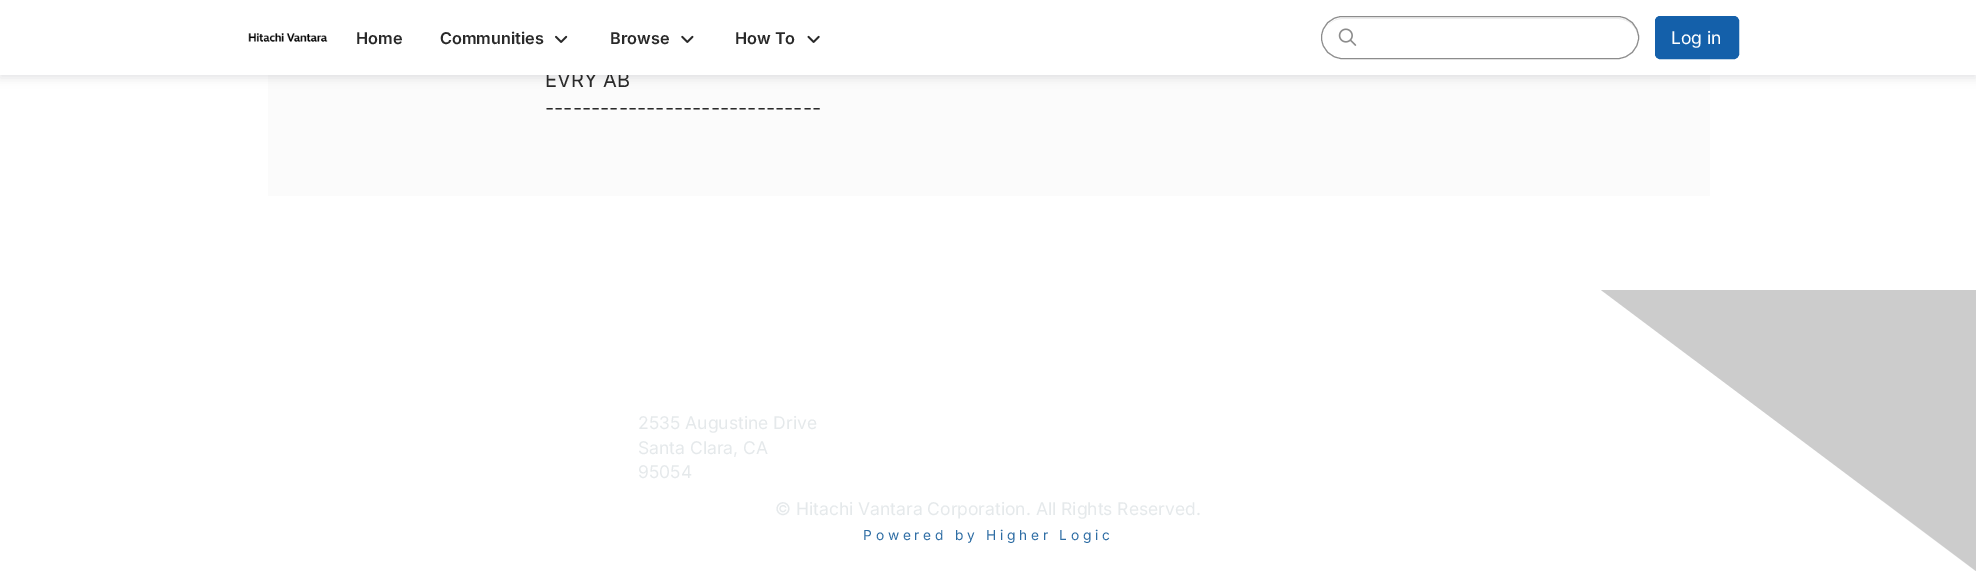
%!PS
<< /PageSize [1976 571] /PageUsesTransparency true >> setpagedevice
/mt/moveto load def
/li/lineto load def
/ct/curveto load def
/cp/closepath load def
/fl/fill load def
/st/stroke load def
/gs/gsave load def
/gr/grestore load def
/co { dup -16 bitshift 255 div exch dup -8 bitshift 255 and 255 div exch 255 and 255 div setrgbcolor } def
/fn { [ exch dup neg 0 0 3 -1 roll 0 0 ] selectfont } def
/tx { co fn moveto show } def
/bx { co rectfill } def
/al { dup .setfillconstantalpha .setstrokeconstantalpha } def
/rr { 5 dict begin { /r /h /w /y /x } { exch def } forall
  x r add y moveto x w add y 2 copy h add r arct x w add y h add x 1 index r arct
  x y h add x y r arct x y 2 copy exch w add exch r arct closepath end } def
/sh { 12 dict begin { /a /b /q /h /w /y /x } { exch def } forall gsave /was 0 def
  9 -2 -9 { dup b mul 4 div /e exch def 1 sub .425 mul 2.718 exch exp 1 add a .99 .min exch div /now exch def
    1 1 now sub 1 was sub div sub al /was now def
    w h .min e 2 mul add 0 gt { x e sub y e sub w e 2 mul add h e 2 mul add
      q e add b .6 mul add w h .min 2 div e add .min 0 .max rr fill } if } for grestore end } def
/im { 5 dict begin { /h /w /y /x /name } { exch def } forall
  gsave x y translate w h scale
  w h 8 [w 0 0 h 0 0] name (r) file false 3 colorimage grestore end } def
0 .pushpdf14devicefilter
0 571 translate 1 -1 scale
4 setmiterlimit
0 0 1976 571 16#FFFFFF bx
268 75 1442 121 16#FBFBFB bx
16#838791 co
0 3 1976 75 0 5 .24 sh
16#CCCCCC co
1976 290 mt 1976 571 li 1601 290 li cp fl
(EVRY AB) 545 87 /Inter-Regular 20 16#292929 tx
0 0 1976 75 16#FFFFFF bx
16#ECECEC co
1342 19 mt 1618 19 li 1629 19 1638 28 1638 39 ct 1638 38 li 1638 27 1629 18 1618 18 ct 1343 18 li 1337 18 1332 21 1328 25 ct 1332 21 1337 19 1342 19 ct cp fl
16#8C8C8C co
1321.5 16.5 317 42 21 rr st
(media/5.raw) 1338 28 19 18 im
(media/4.raw) 807 35 13 8 im
(How To) 735 44 /Inter-SemiBold 16.25 16#292929 tx
(media/3.raw) 681 35 13 8 im
(Browse) 610 44 /Inter-SemiBold 16.25 16#292929 tx
(media/2.raw) 555 35 13 8 im
(Communities) 440 44 /Inter-SemiBold 16.25 16#292929 tx
(Home) 356 44 /Inter-SemiBold 16.25 16#292929 tx
16#1460AA co
1655.5 16.5 83 42 4.5 rr gs fl gr
st
(Log in) 1671 44 /Inter-Regular 17.5 16#FFFFFF tx
(media/1.raw) 248 33 80 9 im
(------------------------------) 545 115 /Inter-Regular 20 16#292929 tx
(2535 Augustine Drive) 638 429 /Inter-Regular 17.5 16#E5E9EB tx
(Santa Clara, CA) 638 454 /Inter-Regular 17.5 16#E5E9EB tx
(95054) 638 478 /Inter-Regular 17.5 16#E5E9EB tx
(© Hitachi Vantara Corporation. All Rights Reserved.) 775 515 /Inter-Regular 17.5 16#E5E9EB tx
/Inter-Regular 13.75 fn
16#2E6DA4 co
863 540 mt 3.75 0 (Powered by Higher Logic) ashow
.poppdf14devicefilter showpage
